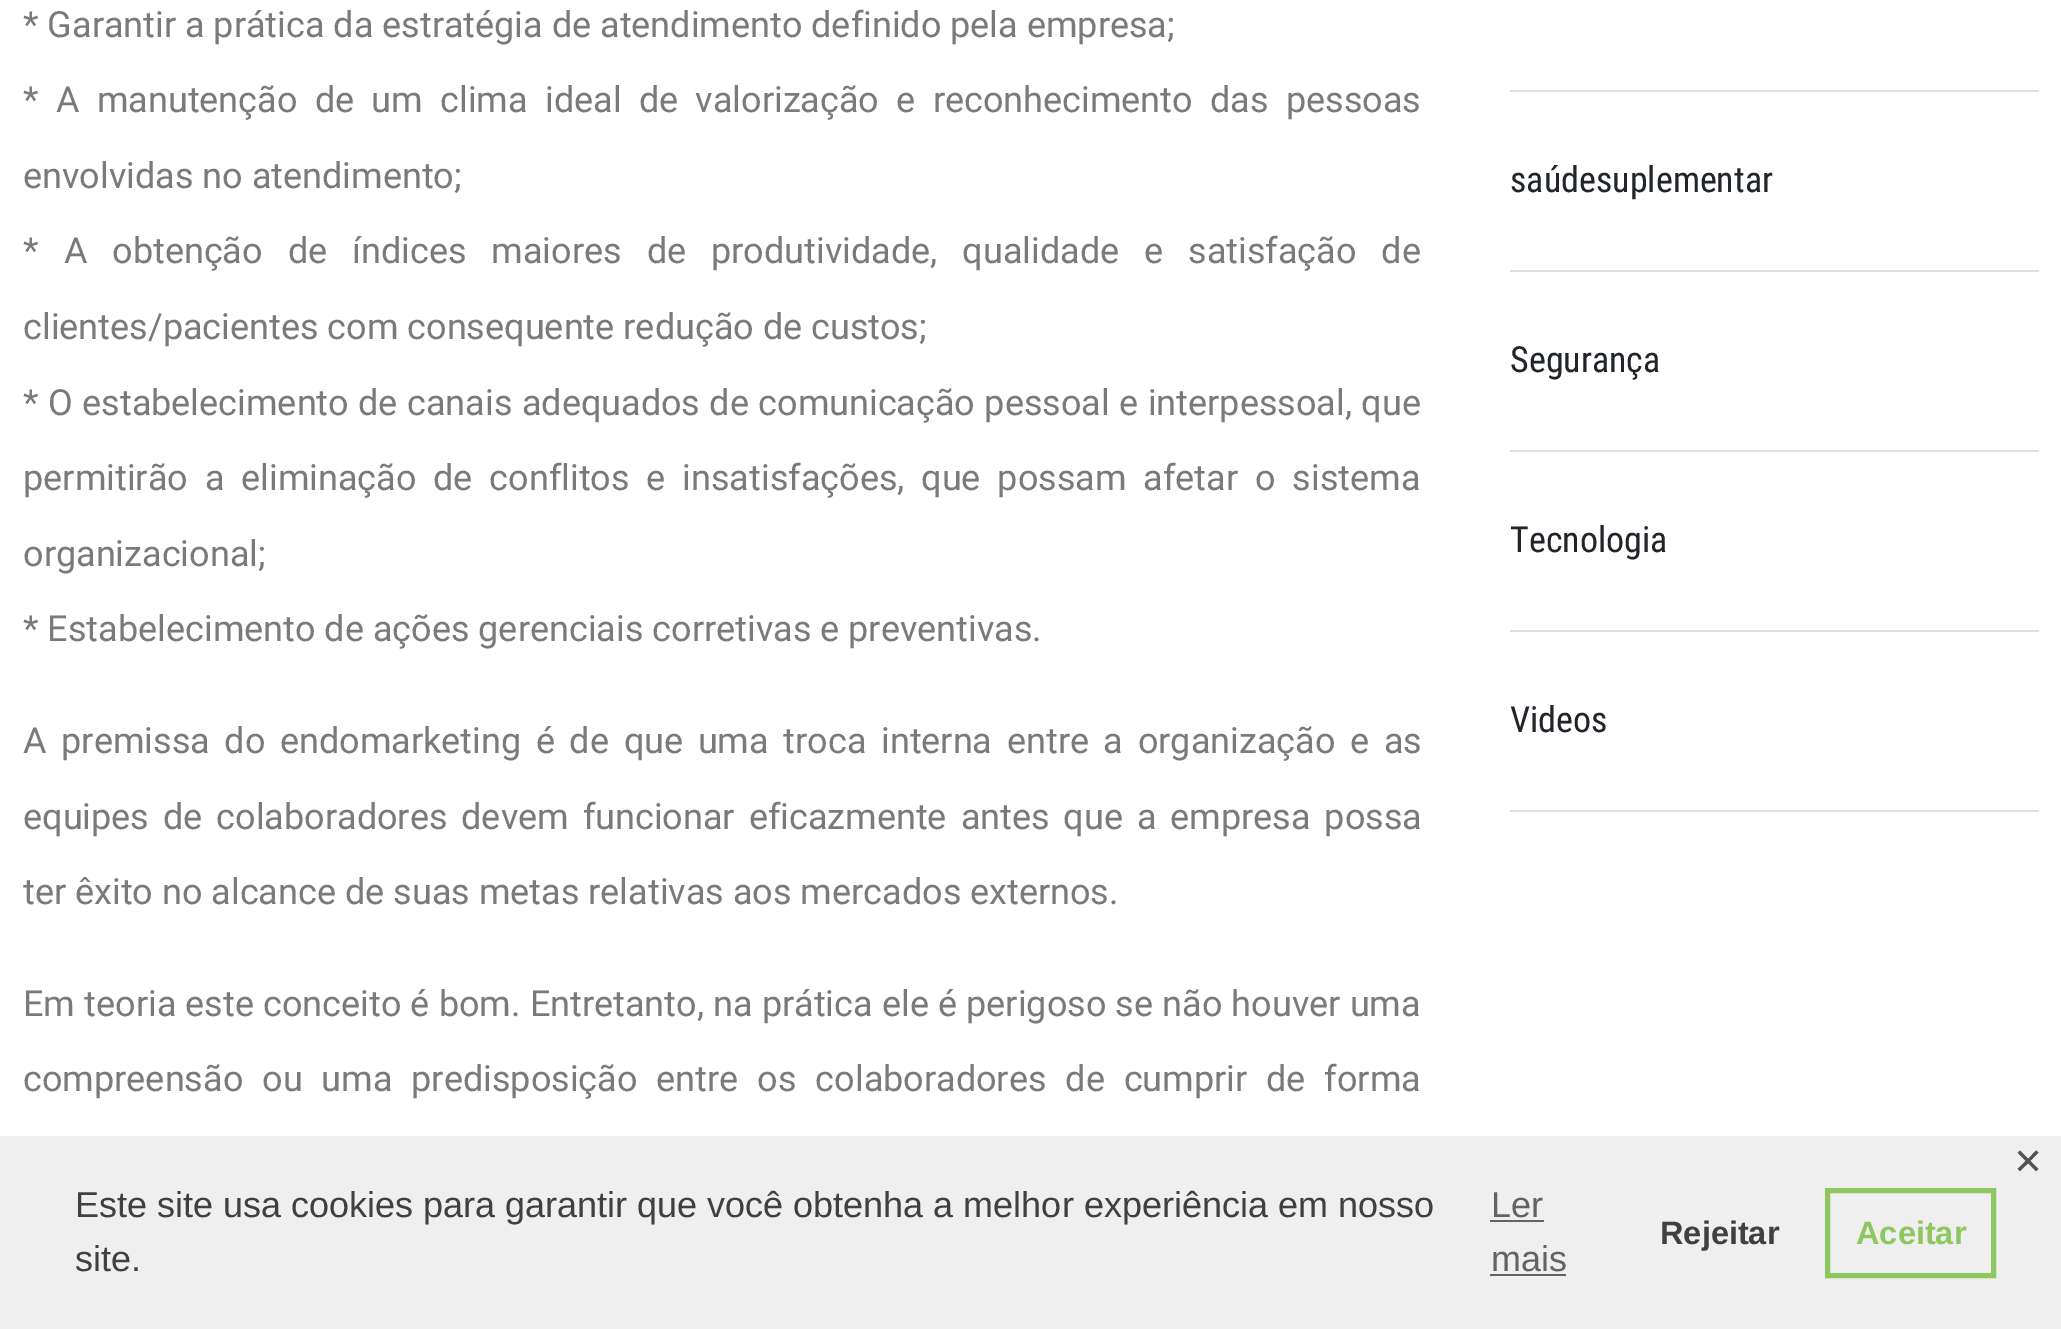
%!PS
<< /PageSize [2061 1329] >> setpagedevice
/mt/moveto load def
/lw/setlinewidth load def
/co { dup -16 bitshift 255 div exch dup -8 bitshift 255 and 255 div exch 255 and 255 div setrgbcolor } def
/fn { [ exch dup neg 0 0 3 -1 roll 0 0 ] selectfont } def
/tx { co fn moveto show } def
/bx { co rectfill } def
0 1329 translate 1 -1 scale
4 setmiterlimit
0 0 2061 1329 16#FFFFFF bx
1510 90 529 2 16#E0E0E0 bx
1510 270 529 2 16#E0E0E0 bx
1510 450 529 2 16#E0E0E0 bx
1510 630 529 2 16#E0E0E0 bx
1510 810 529 2 16#E0E0E0 bx
0 1136 2061 193 16#EFEFEF bx
1490 1220 54 2 16#636363 bx
1490 1274 76 2 16#636363 bx
16#8EC760 co
5 lw
1827.5 1190.5 166 85 rectstroke
(* Garantir a prática da estratégia de atendimento definido pela empresa;) 23 37 /Roboto-Regular 36 16#7A7A7A tx
23 112 mt 8.4 0 32 (* A manutenção de um clima ideal de valorização e reconhecimento das pessoas) widthshow
(envolvidas no atendimento;) 23 188 /Roboto-Regular 36 16#7A7A7A tx
23 263 mt 16.1 0 32 (* A obtenção de índices maiores de produtividade, qualidade e satisfação de) widthshow
(clientes/pacientes com consequente redução de custos;) 23 339 /Roboto-Regular 36 16#7A7A7A tx
23 415 mt .5 0 32 (* O estabelecimento de canais adequados de comunicação pessoal e interpessoal, que) widthshow
23 490 mt 7.9 0 32 (permitirão a eliminação de conflitos e insatisfações, que possam afetar o sistema) widthshow
(organizacional;) 23 566 /Roboto-Regular 36 16#7A7A7A tx
(* Estabelecimento de ações gerenciais corretivas e preventivas.) 23 641 /Roboto-Regular 36 16#7A7A7A tx
23 753 mt 5.75 0 32 (A premissa do endomarketing é de que uma troca interna entre a organização e as) widthshow
23 829 mt 5 0 32 (equipes de colaboradores devem funcionar eficazmente antes que a empresa possa) widthshow
(ter êxito no alcance de suas metas relativas aos mercados externos.) 23 904 /Roboto-Regular 36 16#7A7A7A tx
23 1016 mt .25 0 32 (Em teoria este conceito é bom. Entretanto, na prática ele é perigoso se não houver uma) widthshow
23 1091 mt 10 0 32 (compreensão ou uma predisposição entre os colaboradores de cumprir de forma) widthshow
(saúdesuplementar) 1510 192 /RobotoCondensed-Regular 36 16#212529 tx
(Segurança) 1510 372 /RobotoCondensed-Regular 36 16#212529 tx
(Tecnologia) 1510 552 /RobotoCondensed-Regular 36 16#212529 tx
(Videos) 1510 732 /RobotoCondensed-Regular 36 16#212529 tx
(✕) 2013 1174 /DejaVuSans-Regular 36 16#525252 tx
(Este site usa cookies para garantir que você obtenha a melhor experiência em nosso) 75 1217 /LiberationSans-Regular 36 16#404040 tx
(site.) 75 1271 /LiberationSans-Regular 36 16#404040 tx
(Ler) 1491 1217 /LiberationSans-Regular 36 16#636363 tx
(mais) 1491 1271 /LiberationSans-Regular 36 16#636363 tx
(Rejeitar) 1660 1244 /LiberationSans-Bold 32.5 16#404040 tx
(Aceitar) 1856 1244 /LiberationSans-Bold 32.5 16#8EC760 tx
showpage
